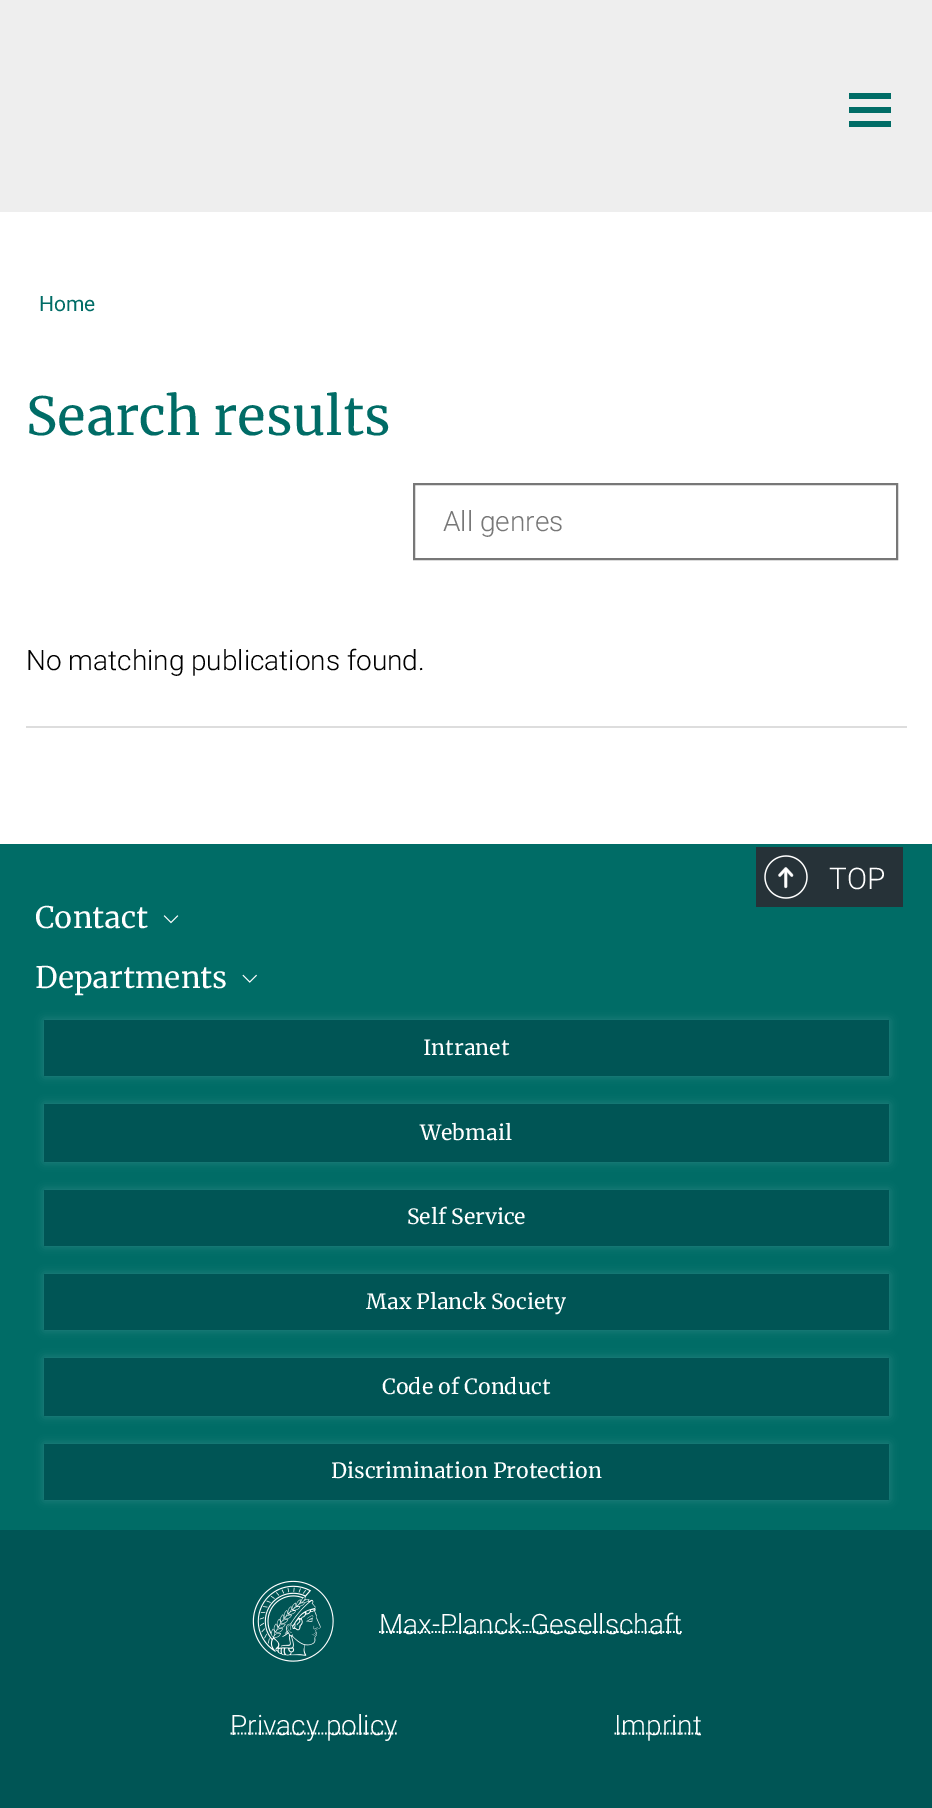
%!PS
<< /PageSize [932 1808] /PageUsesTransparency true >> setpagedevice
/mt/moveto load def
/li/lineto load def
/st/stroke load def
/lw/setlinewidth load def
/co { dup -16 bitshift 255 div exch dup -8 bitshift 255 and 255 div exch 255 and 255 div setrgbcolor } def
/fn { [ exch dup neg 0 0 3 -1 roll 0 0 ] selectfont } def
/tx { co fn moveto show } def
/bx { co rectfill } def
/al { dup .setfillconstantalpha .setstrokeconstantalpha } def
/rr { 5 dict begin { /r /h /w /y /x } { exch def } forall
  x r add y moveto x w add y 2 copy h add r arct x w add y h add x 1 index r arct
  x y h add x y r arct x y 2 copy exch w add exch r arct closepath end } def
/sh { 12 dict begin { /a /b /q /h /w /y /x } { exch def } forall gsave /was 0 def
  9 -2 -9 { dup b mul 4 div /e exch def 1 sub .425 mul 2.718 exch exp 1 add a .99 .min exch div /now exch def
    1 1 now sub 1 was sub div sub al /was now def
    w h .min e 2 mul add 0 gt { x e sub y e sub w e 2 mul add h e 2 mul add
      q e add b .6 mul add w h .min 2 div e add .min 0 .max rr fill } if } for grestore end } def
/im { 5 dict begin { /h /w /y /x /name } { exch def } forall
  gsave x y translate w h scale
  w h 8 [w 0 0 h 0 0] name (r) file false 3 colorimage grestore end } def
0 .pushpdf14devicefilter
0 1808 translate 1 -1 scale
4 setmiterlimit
0 0 932 1808 16#FFFFFF bx
0 0 932 212 16#EEEEEE bx
849 93 42 6 16#006C66 bx
849 107 42 6 16#006C66 bx
849 121 42 6 16#006C66 bx
16#777777 co
2 lw
414 484 483 75 rectstroke
26 726 881 2 16#DDDDDD bx
0 844 932 686 16#006C66 bx
756 847 147 60 16#263238 bx
(media/1.raw) 778 867 16 22 im
(media/2.raw) 764 855 44 44 im
(media/3.raw) 163 915 16 9 im
(media/4.raw) 242 974 15 9 im
16#FFFFFF co
44 1020 845 56 0 4.5 .15 sh
44 1020 845 56 16#005555 bx
16#FFFFFF co
44 1104 845 58 0 4.5 .15 sh
44 1104 845 58 16#005555 bx
16#FFFFFF co
44 1190 845 56 0 4.5 .15 sh
44 1190 845 56 16#005555 bx
16#FFFFFF co
44 1274 845 56 0 4.5 .15 sh
44 1274 845 56 16#005555 bx
16#FFFFFF co
44 1358 845 58 0 4.5 .15 sh
44 1358 845 58 16#005555 bx
16#FFFFFF co
44 1444 845 56 0 4.5 .15 sh
44 1444 845 56 16#005555 bx
0 1530 932 278 16#005555 bx
(media/5.raw) 252 1580 82 82 im
16#FFFFFF co
1.8 lw
[1.75 1.75] 0 setdash
379 1632 mt 682 1632 li st
230.5 1733.5 mt 398 1733.5 li st
614.5 1733.5 mt 702 1733.5 li st
(Home) 39 311 /Roboto-Regular 21 16#006C66 tx
(Search results) 26 435 /Merriweather-Regular 52.5 16#006C66 tx
(All genres) 443 531 /Roboto-Light 28 16#777777 tx
(No matching publications found.) 26 670 /Roboto-Light 28 16#000000 tx
(TOP) 829 889 /Roboto-Light 29.75 16#FFFFFF tx
(Contact) 35 928 /Merriweather-Regular 29.75 16#FFFFFF tx
(Departments) 35 988 /Merriweather-Regular 29.75 16#FFFFFF tx
(Intranet) 423 1055 /Merriweather-Regular 21 16#FFFFFF tx
(Webmail) 420 1140 /Merriweather-Regular 21 16#FFFFFF tx
(Self Service) 407 1224 /Merriweather-Regular 21 16#FFFFFF tx
(Max Planck Society) 366 1309 /Merriweather-Regular 21 16#FFFFFF tx
(Code of Conduct) 382 1394 /Merriweather-Regular 21 16#FFFFFF tx
(Discrimination Protection) 331 1478 /Merriweather-Regular 21 16#FFFFFF tx
(Max-Planck-Gesellschaft) 379 1634 /Roboto-Light 28 16#FFFFFF tx
(Privacy policy) 230 1735 /Roboto-Light 28 16#FFFFFF tx
(Imprint) 614 1735 /Roboto-Light 28 16#FFFFFF tx
.poppdf14devicefilter showpage
